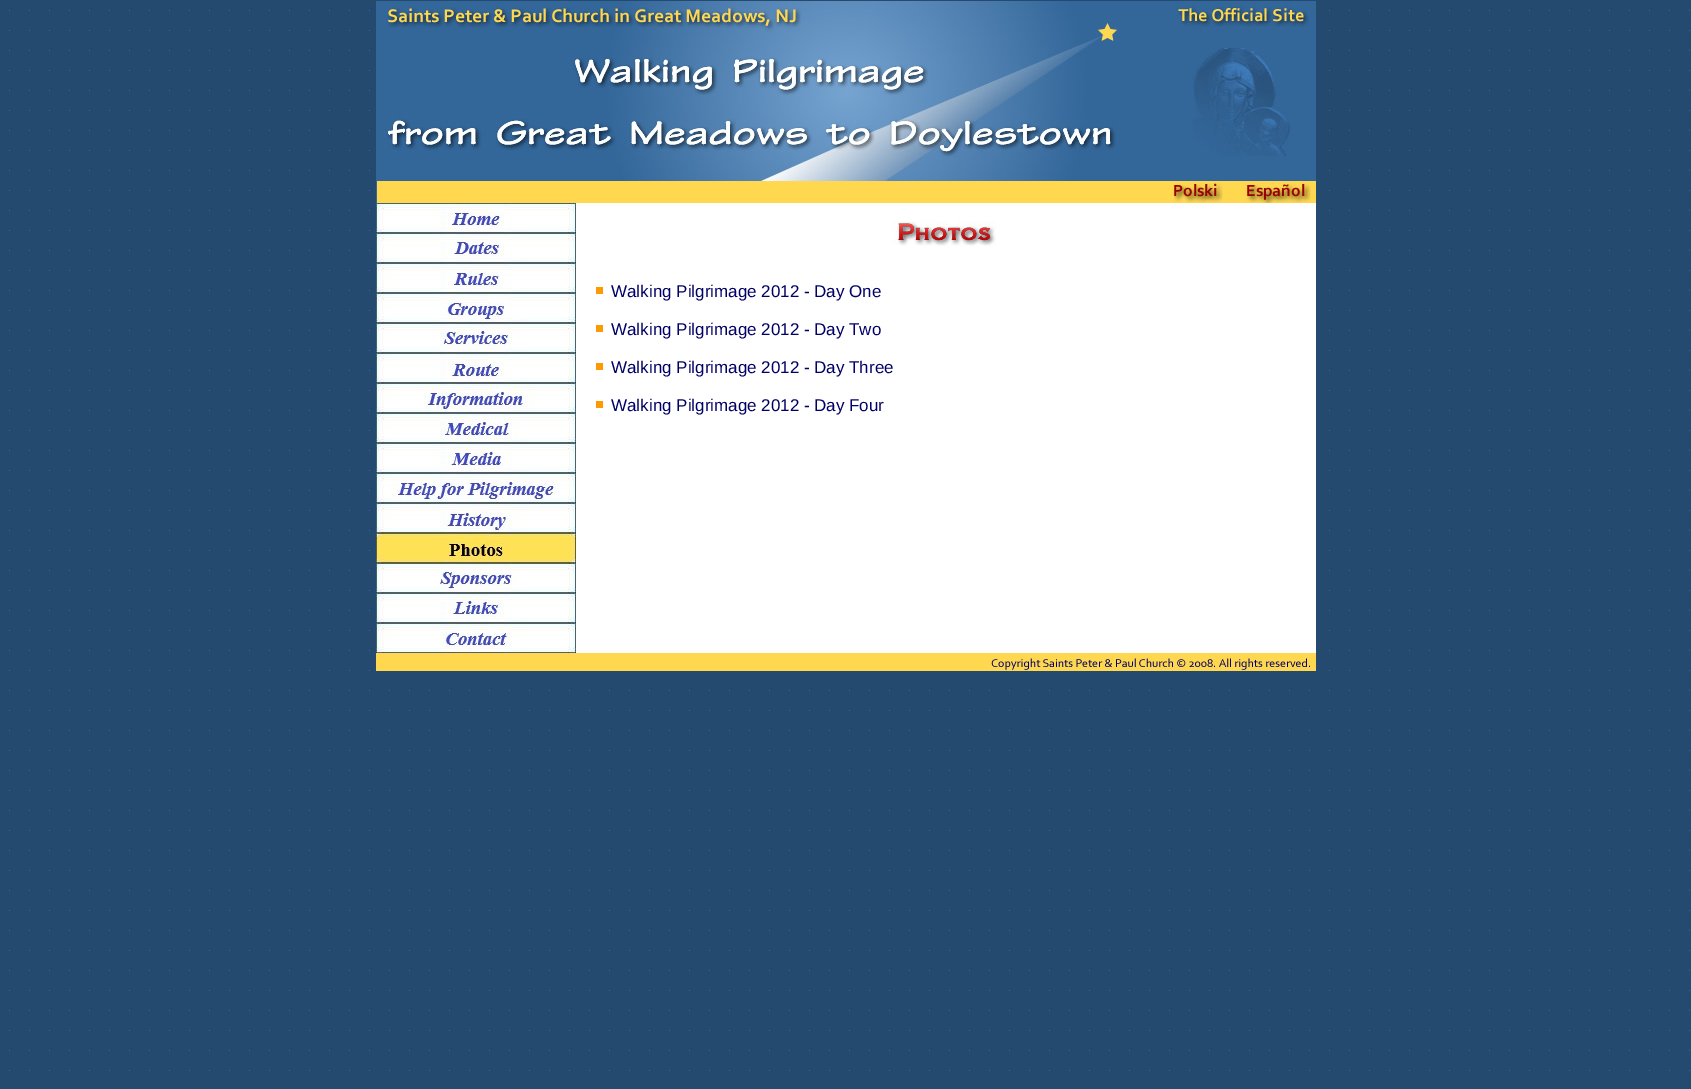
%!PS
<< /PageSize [1691 1089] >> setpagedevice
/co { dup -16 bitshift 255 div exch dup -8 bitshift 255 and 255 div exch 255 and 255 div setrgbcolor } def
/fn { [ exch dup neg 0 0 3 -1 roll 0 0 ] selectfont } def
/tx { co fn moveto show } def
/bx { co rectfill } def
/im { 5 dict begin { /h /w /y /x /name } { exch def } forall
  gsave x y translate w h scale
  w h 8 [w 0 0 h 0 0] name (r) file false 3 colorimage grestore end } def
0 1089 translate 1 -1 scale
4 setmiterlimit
0 0 1691 1089 16#FFFFFF bx
(media/1.raw) 0 0 1691 1089 im
576 203 740 450 16#FFFFFF bx
(media/2.raw) 376 1 940 180 im
377 181 939 22 16#FFD850 bx
376 181 1 22 16#366696 bx
(media/3.raw) 1172 181 51 22 im
(media/4.raw) 1244 181 67 22 im
(media/5.raw) 376 203 200 30 im
(media/6.raw) 376 233 200 30 im
(media/7.raw) 376 263 200 30 im
(media/8.raw) 376 293 200 30 im
(media/9.raw) 376 323 200 30 im
(media/10.raw) 376 353 200 30 im
(media/11.raw) 376 383 200 30 im
(media/12.raw) 376 413 200 30 im
(media/13.raw) 376 443 200 30 im
(media/14.raw) 376 473 200 30 im
(media/15.raw) 376 503 200 30 im
(media/16.raw) 376 533 200 30 im
(media/17.raw) 376 563 200 30 im
(media/18.raw) 376 593 200 30 im
(media/19.raw) 376 623 200 30 im
(media/20.raw) 892 221 104 25 im
(media/21.raw) 596 287 7 8 im
(media/21.raw) 596 325 7 8 im
(media/21.raw) 596 363 7 8 im
(media/21.raw) 596 401 7 8 im
(media/22.raw) 376 653 940 18 im
(Walking Pilgrimage 2012 - Day One) 611 297 /LiberationSans-Regular 17 16#000066 tx
(Walking Pilgrimage 2012 - Day Two) 611 335 /LiberationSans-Regular 17 16#000066 tx
(Walking Pilgrimage 2012 - Day Three) 611 373 /LiberationSans-Regular 17 16#000066 tx
(Walking Pilgrimage 2012 - Day Four) 611 411 /LiberationSans-Regular 17 16#000066 tx
showpage
